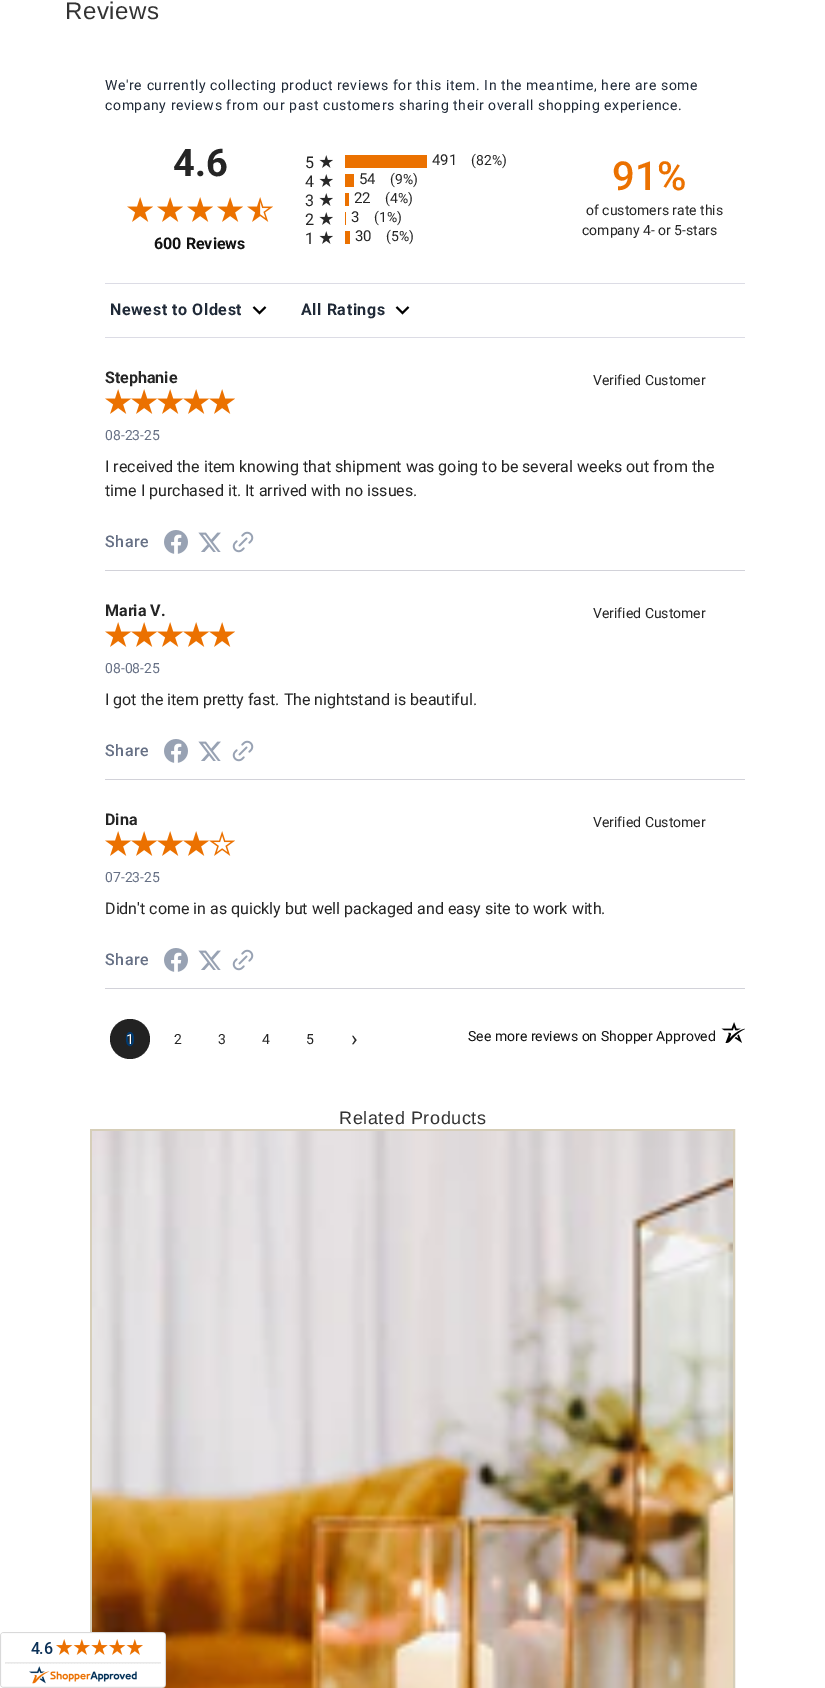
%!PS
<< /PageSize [825 1688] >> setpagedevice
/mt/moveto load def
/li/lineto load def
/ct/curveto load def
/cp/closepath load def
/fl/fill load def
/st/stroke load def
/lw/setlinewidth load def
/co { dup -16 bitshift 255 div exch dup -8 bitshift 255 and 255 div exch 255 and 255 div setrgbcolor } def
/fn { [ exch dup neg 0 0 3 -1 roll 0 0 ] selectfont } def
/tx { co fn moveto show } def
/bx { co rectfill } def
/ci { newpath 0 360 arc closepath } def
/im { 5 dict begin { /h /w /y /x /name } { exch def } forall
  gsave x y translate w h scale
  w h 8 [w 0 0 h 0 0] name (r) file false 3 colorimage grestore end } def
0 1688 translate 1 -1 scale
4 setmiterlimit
0 0 825 1688 16#FFFFFF bx
(media/1.raw) 127 197 26 25 im
(media/1.raw) 157 197 26 25 im
(media/1.raw) 187 197 26 25 im
(media/1.raw) 217 197 26 25 im
(media/2.raw) 247 197 26 25 im
(media/3.raw) 319 155 14 13 im
345 155 82 13 16#EB7100 bx
(media/3.raw) 319 174 14 13 im
345 174 9 13 16#EB7100 bx
(media/3.raw) 319 193 14 13 im
345 193 4 13 16#EB7100 bx
(media/3.raw) 319 212 14 13 im
345 212 1 13 16#EB7100 bx
(media/3.raw) 319 231 14 13 im
345 231 5 13 16#EB7100 bx
105 283 640 1 16#DCDCE5 bx
105 337 640 1 16#DCDCE5 bx
16#000000 co
2 lw
265.5 307 mt 259.5 313 li 253.5 307 li st
408.5 307 mt 402.5 313 li 396.5 307 li st
105 570 640 1 16#D2D2D9 bx
(media/1.raw) 105 389 26 25 im
(media/1.raw) 131 389 26 25 im
(media/1.raw) 157 389 26 25 im
(media/1.raw) 183 389 26 25 im
(media/1.raw) 209 389 26 25 im
(media/4.raw) 164 530 24 24 im
(media/5.raw) 198 532 23 20 im
(media/6.raw) 232 531 22 22 im
105 779 640 1 16#D2D2D9 bx
(media/1.raw) 105 622 26 25 im
(media/1.raw) 131 622 26 25 im
(media/1.raw) 157 622 26 25 im
(media/1.raw) 183 622 26 25 im
(media/1.raw) 209 622 26 25 im
(media/4.raw) 164 739 24 24 im
(media/5.raw) 198 741 23 20 im
(media/6.raw) 232 740 22 22 im
105 988 640 1 16#D2D2D9 bx
(media/1.raw) 105 831 26 25 im
(media/1.raw) 131 831 26 25 im
(media/1.raw) 157 831 26 25 im
(media/1.raw) 183 831 26 25 im
(media/7.raw) 209 831 26 25 im
(media/4.raw) 164 948 24 24 im
(media/5.raw) 198 950 23 20 im
(media/6.raw) 232 949 22 22 im
16#222222 co
130 1039 20 ci fl
16#003A70 co
130 1033 mt 134 1033 134 1045 130 1045 ct 126 1045 126 1033 130 1033 ct cp st
(media/8.raw) 721 1022 24 21 im
16#D6CEB8 co
91 1130 643 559 rectstroke
(media/9.raw) 92 1131 641 557 im
(media/10.raw) 0 1632 166 56 im
/LiberationSans-Regular 24 fn
16#333333 co
65 19 mt .6 0 (Reviews) ashow
/Roboto-Regular 14 fn
16#1F2937 co
105 90 mt .6 0 (We're currently collecting product reviews for this item. In the meantime, here are some) ashow
105 110 mt .6 0 (company reviews from our past customers sharing their overall shopping experience.) ashow
(4.6) 173 176 /Roboto-Bold 38 16#252525 tx
(600 Reviews) 154 249 /Roboto-Bold 16 16#121212 tx
(5) 305 168 /Roboto-Regular 16 16#252525 tx
(491) 432 165 /Roboto-Regular 15 16#252525 tx
(\(82%\)) 471 165 /Roboto-Regular 14 16#252525 tx
(4) 305 187 /Roboto-Regular 16 16#252525 tx
(54) 359 184 /Roboto-Regular 15 16#252525 tx
(\(9%\)) 390 184 /Roboto-Regular 14 16#252525 tx
(3) 305 206 /Roboto-Regular 16 16#252525 tx
(22) 354 203 /Roboto-Regular 15 16#252525 tx
(\(4%\)) 385 203 /Roboto-Regular 14 16#252525 tx
(2) 305 225 /Roboto-Regular 16 16#252525 tx
(3) 351 222 /Roboto-Regular 15 16#252525 tx
(\(1%\)) 374 222 /Roboto-Regular 14 16#252525 tx
(1) 305 244 /Roboto-Regular 16 16#252525 tx
(30) 355 241 /Roboto-Regular 15 16#252525 tx
(\(5%\)) 386 241 /Roboto-Regular 14 16#252525 tx
(91%) 612 190 /Roboto-Medium 40 16#EB7100 tx
(of customers rate this) 586 215 /Roboto-Regular 14 16#252525 tx
(company 4- or 5-stars) 582 235 /Roboto-Regular 14 16#252525 tx
/Roboto-Bold 16 fn
16#1F2937 co
110 315 mt .6 0 (Newest to Oldest) ashow
301 315 mt .6 0 (All Ratings) ashow
(Stephanie) 105 383 /Roboto-Bold 16 16#252525 tx
(Verified Customer) 593 385 /Roboto-Regular 14 16#252525 tx
(08-23-25) 105 440 /Roboto-Regular 14 16#667085 tx
(I received the item knowing that shipment was going to be several weeks out from the) 105 472 /Roboto-Regular 16 16#252525 tx
(time I purchased it. It arrived with no issues.) 105 496 /Roboto-Regular 16 16#252525 tx
/Roboto-Medium 16 fn
16#667085 co
105 547 mt .6 0 (Share) ashow
(Maria V.) 105 616 /Roboto-Bold 16 16#252525 tx
(Verified Customer) 593 618 /Roboto-Regular 14 16#252525 tx
(08-08-25) 105 673 /Roboto-Regular 14 16#667085 tx
(I got the item pretty fast. The nightstand is beautiful.) 105 705 /Roboto-Regular 16 16#252525 tx
/Roboto-Medium 16 fn
16#667085 co
105 756 mt .6 0 (Share) ashow
(Dina) 105 825 /Roboto-Bold 16 16#252525 tx
(Verified Customer) 593 827 /Roboto-Regular 14 16#252525 tx
(07-23-25) 105 882 /Roboto-Regular 14 16#667085 tx
(Didn't come in as quickly but well packaged and easy site to work with.) 105 914 /Roboto-Regular 16 16#252525 tx
/Roboto-Medium 16 fn
16#667085 co
105 965 mt .6 0 (Share) ashow
(1) 126 1044 /Roboto-Regular 14 16#FFFFFF tx
(2) 174 1044 /Roboto-Regular 14 16#252525 tx
(3) 218 1044 /Roboto-Regular 14 16#252525 tx
(4) 262 1044 /Roboto-Regular 14 16#252525 tx
(5) 306 1044 /Roboto-Regular 14 16#252525 tx
(›) 351 1046 /Roboto-Regular 22 16#252525 tx
(See more reviews on Shopper Approved) 468 1041 /Roboto-Regular 14 16#121212 tx
/LiberationSans-Regular 18 fn
16#333333 co
339 1124 mt .6 0 (Related Products) ashow
showpage
